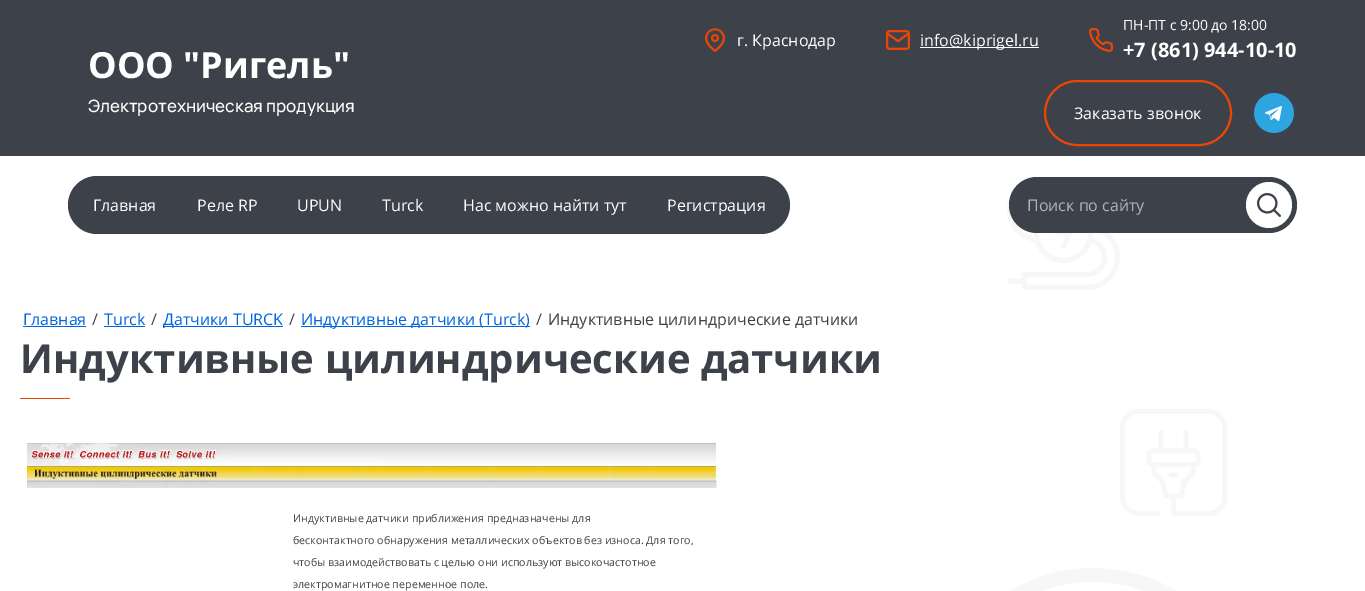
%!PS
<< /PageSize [1365 591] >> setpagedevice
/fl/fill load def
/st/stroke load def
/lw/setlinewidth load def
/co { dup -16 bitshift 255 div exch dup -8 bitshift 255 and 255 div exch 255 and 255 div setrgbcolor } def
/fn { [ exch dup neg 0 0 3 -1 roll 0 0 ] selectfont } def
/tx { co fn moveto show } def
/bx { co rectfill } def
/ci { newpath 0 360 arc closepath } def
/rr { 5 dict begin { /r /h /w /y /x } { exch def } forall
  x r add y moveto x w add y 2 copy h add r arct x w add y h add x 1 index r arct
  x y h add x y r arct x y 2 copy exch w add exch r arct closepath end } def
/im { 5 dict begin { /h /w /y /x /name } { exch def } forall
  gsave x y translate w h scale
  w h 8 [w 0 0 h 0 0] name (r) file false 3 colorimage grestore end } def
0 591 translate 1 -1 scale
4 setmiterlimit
0 0 1365 591 16#FFFFFF bx
(media/1.raw) 1007 177 220 414 im
0 0 1365 156 16#3D4149 bx
(media/2.raw) 705 28 20 24 im
(media/3.raw) 886 30 24 20 im
920 47 119 1 16#FFFFFF bx
(media/4.raw) 1089 28 24 24 im
16#EB4605 co
2 lw
1045 81 186 64 32 rr st
(media/5.raw) 1254 93 40 40 im
16#3D4149 co
68 176 722 58 29 rr fl
1009 177 288 56 28 rr fl
16#FFFFFF co
1269 205 23 ci fl
(media/6.raw) 1257 193 24 24 im
23 326 63 1 16#0065E0 bx
104 326 41 1 16#0065E0 bx
163 326 120 1 16#0065E0 bx
301 326 229 1 16#0065E0 bx
16#EB4605 co
20 398 50 1 .5 rr fl
(media/7.raw) 27 443 689 23 im
(media/8.raw) 27 466 689 15 im
(media/9.raw) 27 481 690 7 im
(ООО "Ригель") 88 78 /OpenSans-Bold 36 16#FFFFFF tx
(Электротехническая продукция) 88 112 /Manrope-ExtraLight 17 16#FFFFFF tx
(г. Краснодар) 737 46 /OpenSans-Regular 16 16#FFFFFF tx
(info@kiprigel.ru) 920 46 /OpenSans-Regular 16 16#FFFFFF tx
(ПН-ПТ с 9:00 до 18:00) 1123 30 /OpenSans-Regular 14 16#FFFFFF tx
(+7 \(861\) 944-10-10) 1123 57 /OpenSans-Bold 20 16#FFFFFF tx
(Заказать звонок) 1074 119 /OpenSans-Regular 16 16#FFFFFF tx
(Главная) 93 211 /OpenSans-Regular 16 16#FFFFFF tx
(Реле RP) 197 211 /OpenSans-Regular 16 16#FFFFFF tx
(UPUN) 297 211 /OpenSans-Regular 16 16#FFFFFF tx
(Turck) 382 211 /OpenSans-Regular 16 16#FFFFFF tx
(Нас можно найти тут) 463 211 /OpenSans-Regular 16 16#FFFFFF tx
(Регистрация) 667 211 /OpenSans-Regular 16 16#FFFFFF tx
(Поиск по сайту) 1027 211 /OpenSans-Regular 16 16#B1B3B6 tx
(Главная) 23 325 /OpenSans-Regular 16 16#0065E0 tx
(/) 92 325 /OpenSans-Regular 16 16#3D4149 tx
(Turck) 104 325 /OpenSans-Regular 16 16#0065E0 tx
(/) 151 325 /OpenSans-Regular 16 16#3D4149 tx
(Датчики TURCK) 163 325 /OpenSans-Regular 16 16#0065E0 tx
(/) 289 325 /OpenSans-Regular 16 16#3D4149 tx
(Индуктивные датчики \(Turck\)) 301 325 /OpenSans-Regular 16 16#0065E0 tx
(/) 536 325 /OpenSans-Regular 16 16#3D4149 tx
(Индуктивные цилиндрические датчики) 548 325 /OpenSans-Regular 16 16#3D4149 tx
(Индуктивные цилиндрические датчики) 20 373 /OpenSans-Bold 40 16#3D4149 tx
(Индуктивные датчики приближения предназначены для) 293 522 /OpenSans-Regular 10.65 16#3D4149 tx
(бесконтактного обнаружения металлических объектов без износа. Для того,) 293 544 /OpenSans-Regular 10.65 16#3D4149 tx
(чтобы взаимодействовать с целью они используют высокочастотное) 293 566 /OpenSans-Regular 10.65 16#3D4149 tx
(электромагнитное переменное поле.) 293 588 /OpenSans-Regular 10.65 16#3D4149 tx
showpage
